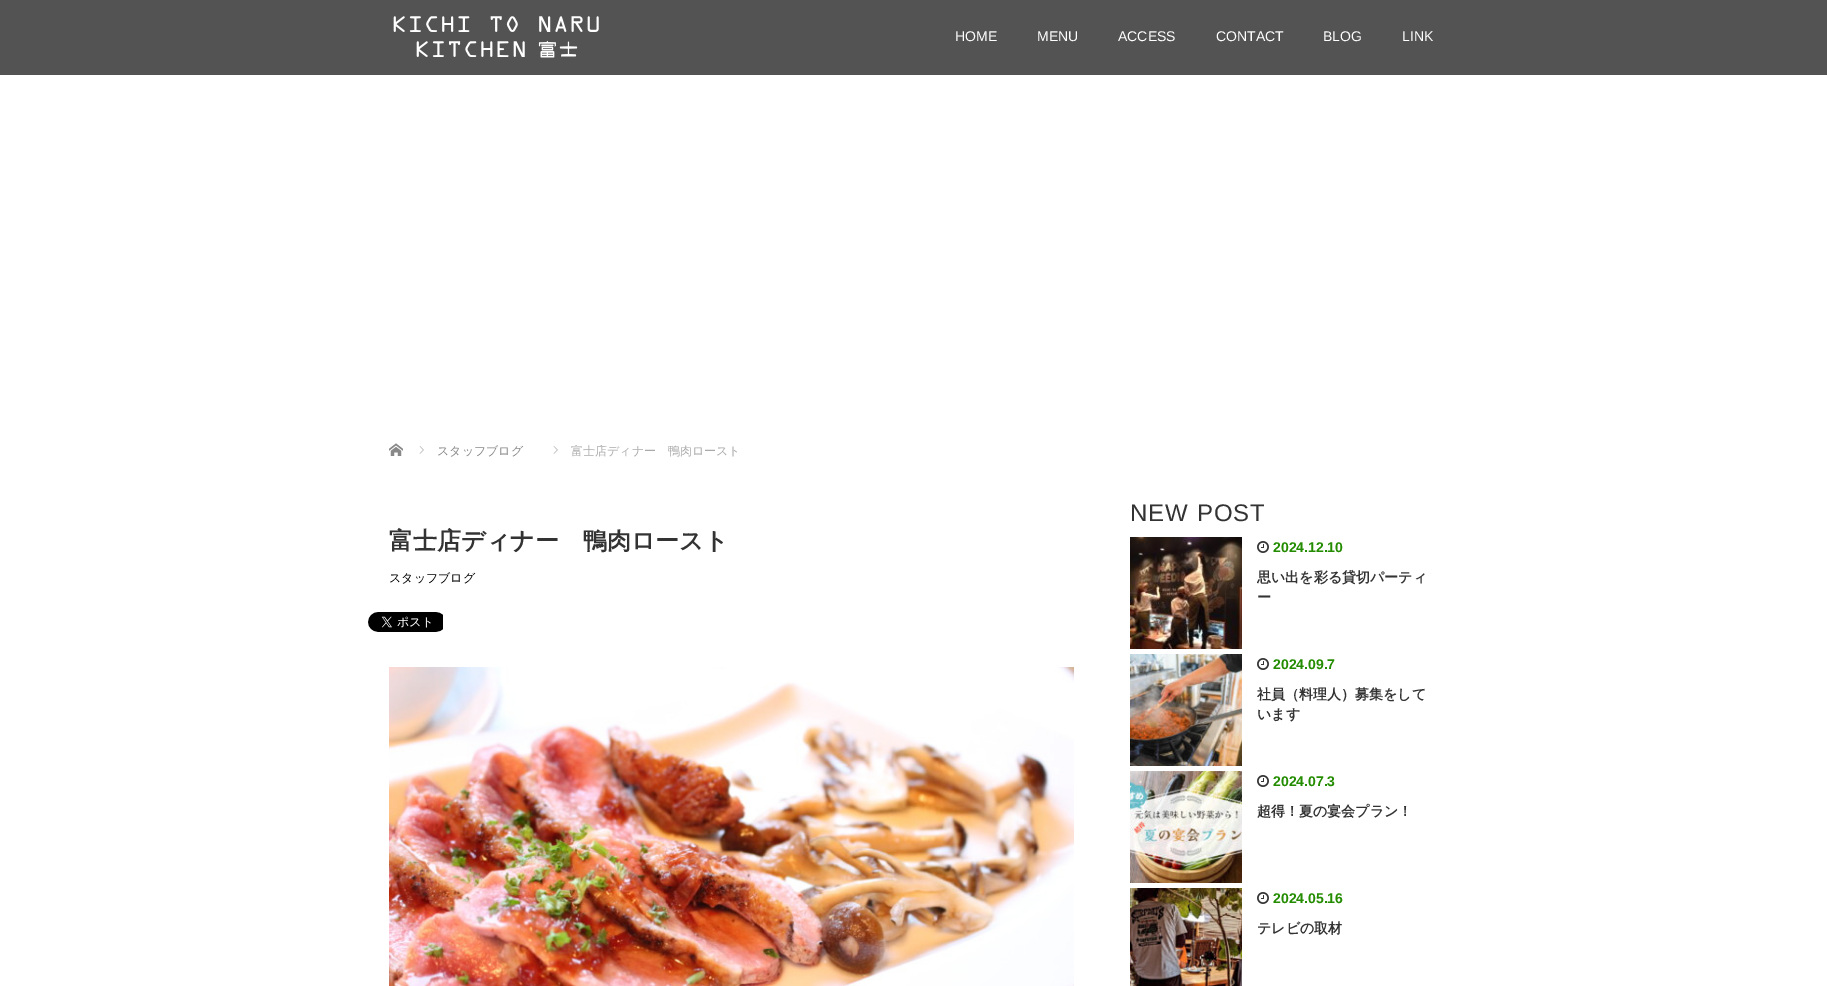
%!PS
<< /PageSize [1827 986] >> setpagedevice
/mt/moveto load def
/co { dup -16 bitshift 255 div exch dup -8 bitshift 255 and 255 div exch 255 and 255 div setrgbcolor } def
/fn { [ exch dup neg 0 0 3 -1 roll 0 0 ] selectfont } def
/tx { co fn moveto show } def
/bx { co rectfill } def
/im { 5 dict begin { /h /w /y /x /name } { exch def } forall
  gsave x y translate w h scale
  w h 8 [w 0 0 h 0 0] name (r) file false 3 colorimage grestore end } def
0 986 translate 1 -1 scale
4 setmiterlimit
0 0 1827 986 16#FFFFFF bx
0 0 1827 75 16#535353 bx
(media/1.raw) 393 16 206 42 im
(media/2.raw) 389 443 14 13 im
(media/3.raw) 419 446 5 8 im
(media/3.raw) 553 446 5 8 im
(media/4.raw) 368 612 75 20 im
(media/5.raw) 389 667 685 319 im
(media/6.raw) 1130 537 112 112 im
(media/7.raw) 1257 541 12 12 im
(media/8.raw) 1130 654 112 112 im
(media/7.raw) 1257 658 12 12 im
(media/9.raw) 1130 771 112 112 im
(media/7.raw) 1257 775 12 12 im
(media/10.raw) 1130 888 112 98 im
(media/7.raw) 1257 892 12 12 im
(HOME) 955 41 /LiberationSans-Regular 14 16#FFFFFF tx
(MENU) 1037 41 /LiberationSans-Regular 14 16#FFFFFF tx
(ACCESS) 1118 41 /LiberationSans-Regular 14 16#FFFFFF tx
(CONTACT) 1216 41 /LiberationSans-Regular 14 16#FFFFFF tx
(BLOG) 1323 41 /LiberationSans-Regular 14 16#FFFFFF tx
(LINK) 1402 41 /LiberationSans-Regular 14 16#FFFFFF tx
(スタッフブログ) 437 455 /WenQuanYiZenHei-Medium 12 16#888888 tx
(富士店ディナー　鴨肉ロースト) 571 455 /WenQuanYiZenHei-Medium 12 16#AAAAAA tx
(富士店ディナー　鴨肉ロースト) 389 549 /WenQuanYiZenHei-Bold 24 16#333333 tx
(スタッフブログ) 389 582 /WenQuanYiZenHei-Medium 12 16#000000 tx
/LiberationSans-Regular 24 fn
16#333333 co
1130 521 mt 1 0 (NEW POST) ashow
(2024.12.10) 1273 552 /LiberationSans-Bold 14 16#238C00 tx
(思い出を彩る貸切パーティ) 1257 582 /WenQuanYiZenHei-Bold 14 16#333333 tx
(ー) 1257 602 /WenQuanYiZenHei-Bold 14 16#333333 tx
(2024.09.7) 1273 669 /LiberationSans-Bold 14 16#238C00 tx
(社員（料理人）募集をして) 1257 699 /WenQuanYiZenHei-Bold 14 16#333333 tx
(います) 1257 719 /WenQuanYiZenHei-Bold 14 16#333333 tx
(2024.07.3) 1273 786 /LiberationSans-Bold 14 16#238C00 tx
(超得！夏の宴会プラン！) 1257 816 /WenQuanYiZenHei-Bold 14 16#333333 tx
(2024.05.16) 1273 903 /LiberationSans-Bold 14 16#238C00 tx
(テレビの取材) 1257 933 /WenQuanYiZenHei-Bold 14 16#333333 tx
showpage
